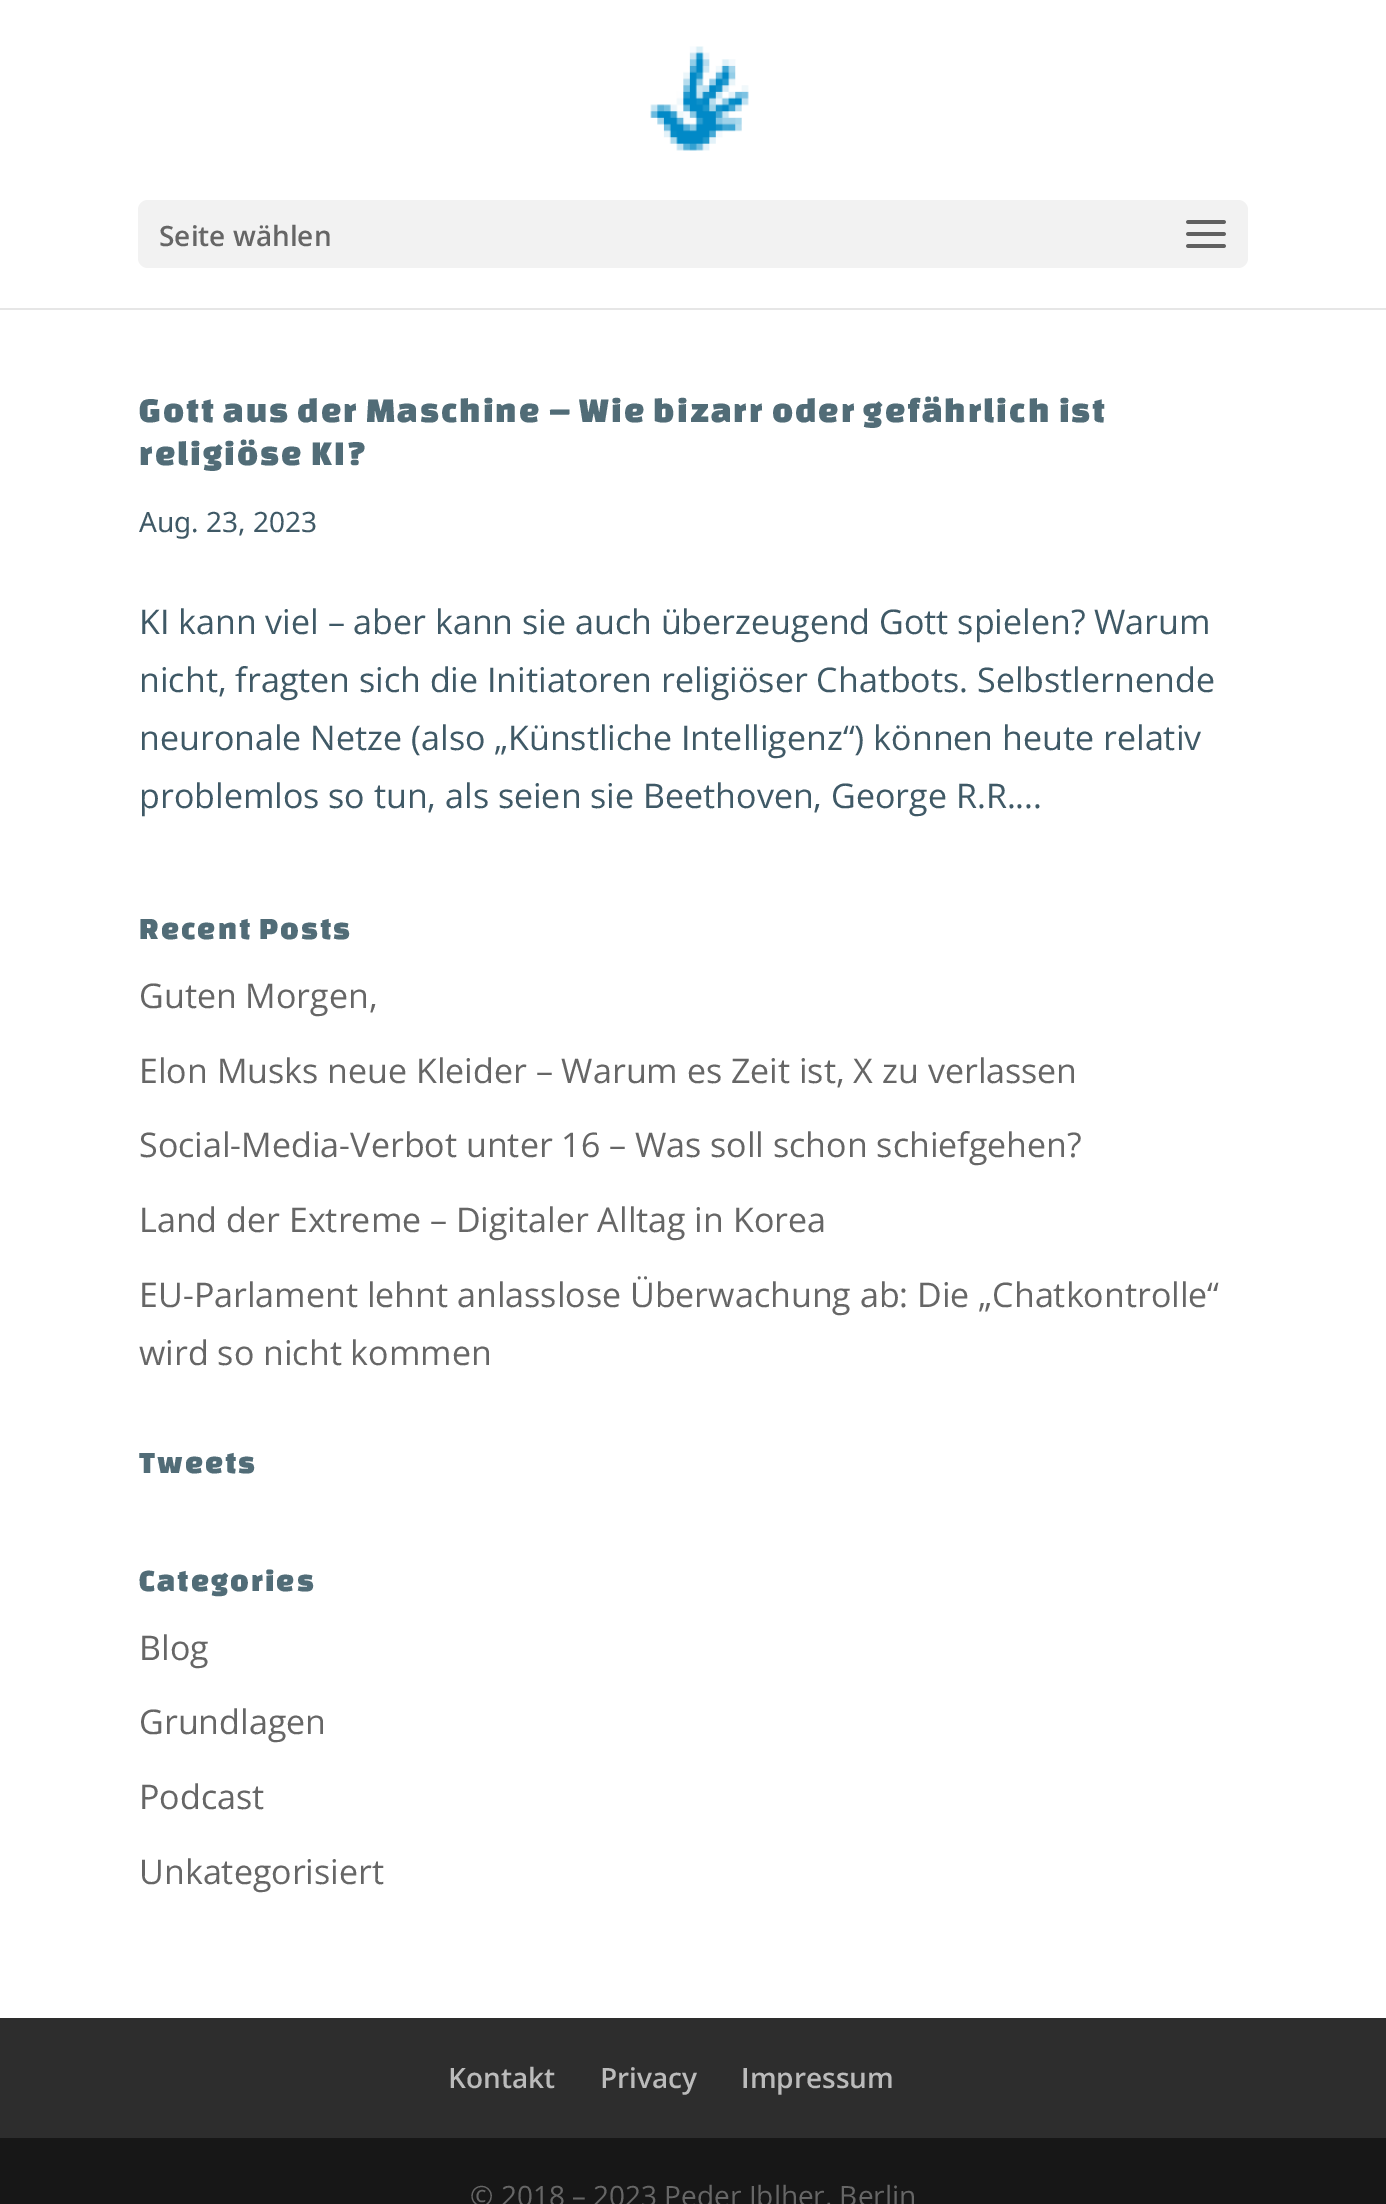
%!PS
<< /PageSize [1386 2204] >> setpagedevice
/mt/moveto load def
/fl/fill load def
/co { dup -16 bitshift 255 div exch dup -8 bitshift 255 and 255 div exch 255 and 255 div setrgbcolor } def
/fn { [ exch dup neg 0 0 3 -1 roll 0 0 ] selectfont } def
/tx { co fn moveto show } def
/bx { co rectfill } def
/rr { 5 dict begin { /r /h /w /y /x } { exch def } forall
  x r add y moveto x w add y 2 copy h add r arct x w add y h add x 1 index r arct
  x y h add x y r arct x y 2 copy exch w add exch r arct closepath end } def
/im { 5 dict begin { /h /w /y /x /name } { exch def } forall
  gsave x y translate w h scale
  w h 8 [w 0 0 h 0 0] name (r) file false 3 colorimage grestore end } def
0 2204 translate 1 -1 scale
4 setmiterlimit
0 0 1386 2204 16#FFFFFF bx
0 308 1386 2 16#E6E6E6 bx
(media/1.raw) 650 46 99 105 im
16#F2F2F2 co
138 200 1110 68 10 rr fl
(media/2.raw) 1186 220 40 28 im
0 2018 1386 120 16#2D2D2D bx
0 2138 1386 66 16#171717 bx
(Seite wählen) 159 246 /OpenSans-SemiBold 28 16#666666 tx
/ChangaOne-Regular 36 fn
16#516C77 co
139 422 mt 2 0 (Gott aus der Maschine – Wie bizarr oder gefährlich ist) ashow
139 465 mt 2 0 (religiöse KI?) ashow
(Aug. 23, 2023) 139 532 /NotoSans-Regular 28 16#3F5966 tx
(KI kann viel – aber kann sie auch überzeugend Gott spielen? Warum) 139 634 /OpenSans-Regular 34 16#3F5966 tx
(nicht, fragten sich die Initiatoren religiöser Chatbots. Selbstlernende) 139 692 /OpenSans-Regular 34 16#3F5966 tx
(neuronale Netze \(also „Künstliche Intelligenz“\) können heute relativ) 139 750 /OpenSans-Regular 34 16#3F5966 tx
(problemlos so tun, als seien sie Beethoven, George R.R....) 139 808 /OpenSans-Regular 34 16#3F5966 tx
/ChangaOne-Regular 32 fn
16#516C77 co
139 939 mt 2 0 (Recent Posts) ashow
(Guten Morgen,) 139 1008 /OpenSans-Regular 34 16#666666 tx
(Elon Musks neue Kleider – Warum es Zeit ist, X zu verlassen) 139 1083 /OpenSans-Regular 34 16#666666 tx
(Social-Media-Verbot unter 16 – Was soll schon schiefgehen?) 139 1157 /OpenSans-Regular 34 16#666666 tx
(Land der Extreme – Digitaler Alltag in Korea) 139 1232 /OpenSans-Regular 34 16#666666 tx
(EU-Parlament lehnt anlasslose Überwachung ab: Die „Chatkontrolle“) 139 1307 /OpenSans-Regular 34 16#666666 tx
(wird so nicht kommen) 139 1365 /OpenSans-Regular 34 16#666666 tx
/ChangaOne-Regular 32 fn
16#516C77 co
139 1473 mt 2 0 (Tweets) ashow
139 1591 mt 2 0 (Categories) ashow
(Blog) 139 1660 /OpenSans-Regular 34 16#666666 tx
(Grundlagen) 139 1734 /OpenSans-Regular 34 16#666666 tx
(Podcast) 139 1809 /OpenSans-Regular 34 16#666666 tx
(Unkategorisiert) 139 1884 /OpenSans-Regular 34 16#666666 tx
(Kontakt) 448 2088 /OpenSans-SemiBold 28 16#BBBBBB tx
(Privacy) 600 2088 /OpenSans-SemiBold 28 16#BBBBBB tx
(Impressum) 741 2088 /OpenSans-SemiBold 28 16#BBBBBB tx
(© 2018 – 2023 Peder Iblher, Berlin) 470 2206 /OpenSans-Regular 28 16#666666 tx
showpage
